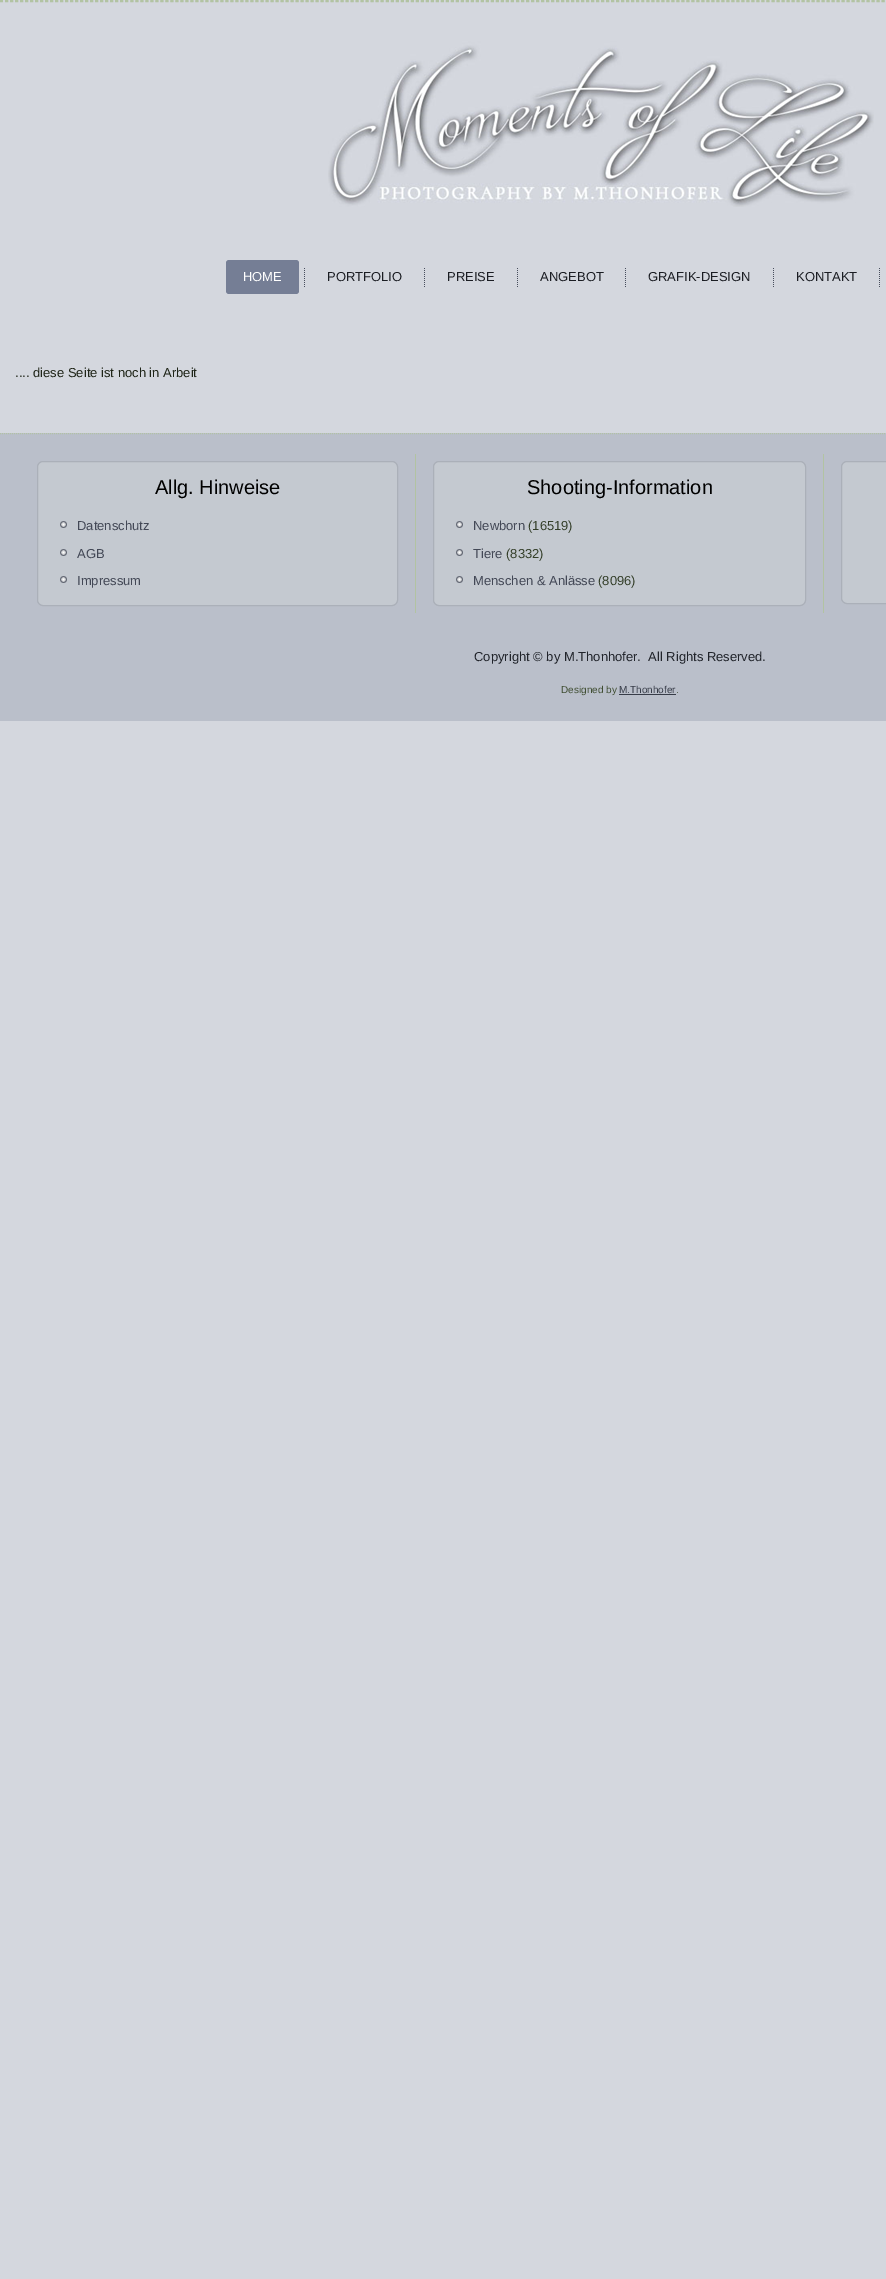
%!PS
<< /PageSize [886 2279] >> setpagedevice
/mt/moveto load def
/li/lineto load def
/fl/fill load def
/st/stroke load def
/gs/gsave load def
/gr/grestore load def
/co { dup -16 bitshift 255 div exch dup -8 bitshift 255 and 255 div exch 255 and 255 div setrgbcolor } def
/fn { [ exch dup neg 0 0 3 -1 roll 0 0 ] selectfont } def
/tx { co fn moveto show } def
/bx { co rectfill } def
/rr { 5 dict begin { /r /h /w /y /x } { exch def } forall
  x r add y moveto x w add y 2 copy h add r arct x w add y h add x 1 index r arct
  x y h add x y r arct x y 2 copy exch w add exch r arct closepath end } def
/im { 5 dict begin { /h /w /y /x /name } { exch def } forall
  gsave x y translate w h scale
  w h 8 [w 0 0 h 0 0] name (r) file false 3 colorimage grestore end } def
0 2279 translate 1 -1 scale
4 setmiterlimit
0 0 886 2279 16#D4D7DE bx
16#B2C3A2 co
[3 2.01] 0 setdash
0 .5 mt 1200 .5 li st
0 1.5 mt 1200 1.5 li st
(media/1.raw) 328 36 546 171 im
16#757E95 co
226 260 73 34 3 rr fl
(media/2.raw) 304 268 1 19 im
(media/2.raw) 424 268 1 19 im
(media/2.raw) 517 268 1 19 im
(media/2.raw) 625 268 1 19 im
(media/2.raw) 773 268 1 19 im
(media/2.raw) 879 268 1 19 im
0 433 886 288 16#BABFCA bx
16#B2C3A2 co
[1 1] 0 setdash
0 433.5 mt 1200 433.5 li st
415 454 1 159 16#B2C3A2 bx
16#C4C9D0 co
37.5 461.5 360 144 5.5 rr gs fl gr
16#ABB0B9 co
[] 0 setdash
st
(media/3.raw) 60 521 7 7 im
(media/3.raw) 60 549 7 7 im
(media/3.raw) 60 576 7 7 im
823 454 1 159 16#B2C3A2 bx
16#C4C9D0 co
433.5 461.5 372 144 5.5 rr gs fl gr
16#ABB0B9 co
st
(media/3.raw) 456 521 7 7 im
(media/3.raw) 456 549 7 7 im
(media/3.raw) 456 576 7 7 im
16#C4C9D0 co
841.5 461.5 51 142 5.5 rr gs fl gr
16#ABB0B9 co
st
619 694 57 1 16#373C48 bx
(HOME) 243 281 /LiberationSans-Regular 13 16#FFFFFF tx
(PORTFOLIO) 327 281 /LiberationSans-Regular 13 16#1B1D23 tx
(PREISE) 447 281 /LiberationSans-Regular 13 16#1B1D23 tx
(ANGEBOT) 540 281 /LiberationSans-Regular 13 16#1B1D23 tx
(GRAFIK-DESIGN) 648 281 /LiberationSans-Regular 13 16#1B1D23 tx
(KONTAKT) 796 281 /LiberationSans-Regular 13 16#1B1D23 tx
(.... diese Seite ist noch in Arbeit) 15 377 /LiberationSans-Regular 13 16#1F2518 tx
(Allg. Hinweise) 155 494 /LiberationSans-Regular 20 16#000000 tx
(Datenschutz) 77 530 /LiberationSans-Regular 13 16#434856 tx
(AGB) 77 558 /LiberationSans-Regular 13 16#434856 tx
(Impressum) 77 585 /LiberationSans-Regular 13 16#434856 tx
(Shooting-Information) 527 494 /LiberationSans-Regular 20 16#000000 tx
(Newborn) 473 530 /LiberationSans-Regular 13 16#434856 tx
(\(16519\)) 528 530 /LiberationSans-Regular 13 16#333E28 tx
(Tiere) 473 558 /LiberationSans-Regular 13 16#434856 tx
(\(8332\)) 506 558 /LiberationSans-Regular 13 16#333E28 tx
(Menschen & Anlässe) 473 585 /LiberationSans-Regular 13 16#434856 tx
(\(8096\)) 598 585 /LiberationSans-Regular 13 16#333E28 tx
(Copyright © by M.Thonhofer.  All Rights Reserved.) 474 661 /LiberationSans-Regular 13 16#21242B tx
(Designed by) 561 693 /LiberationSans-Regular 10 16#404E32 tx
(M.Thonhofer) 619 693 /LiberationSans-Regular 10 16#373C48 tx
(.) 676 693 /LiberationSans-Regular 10 16#404E32 tx
showpage
